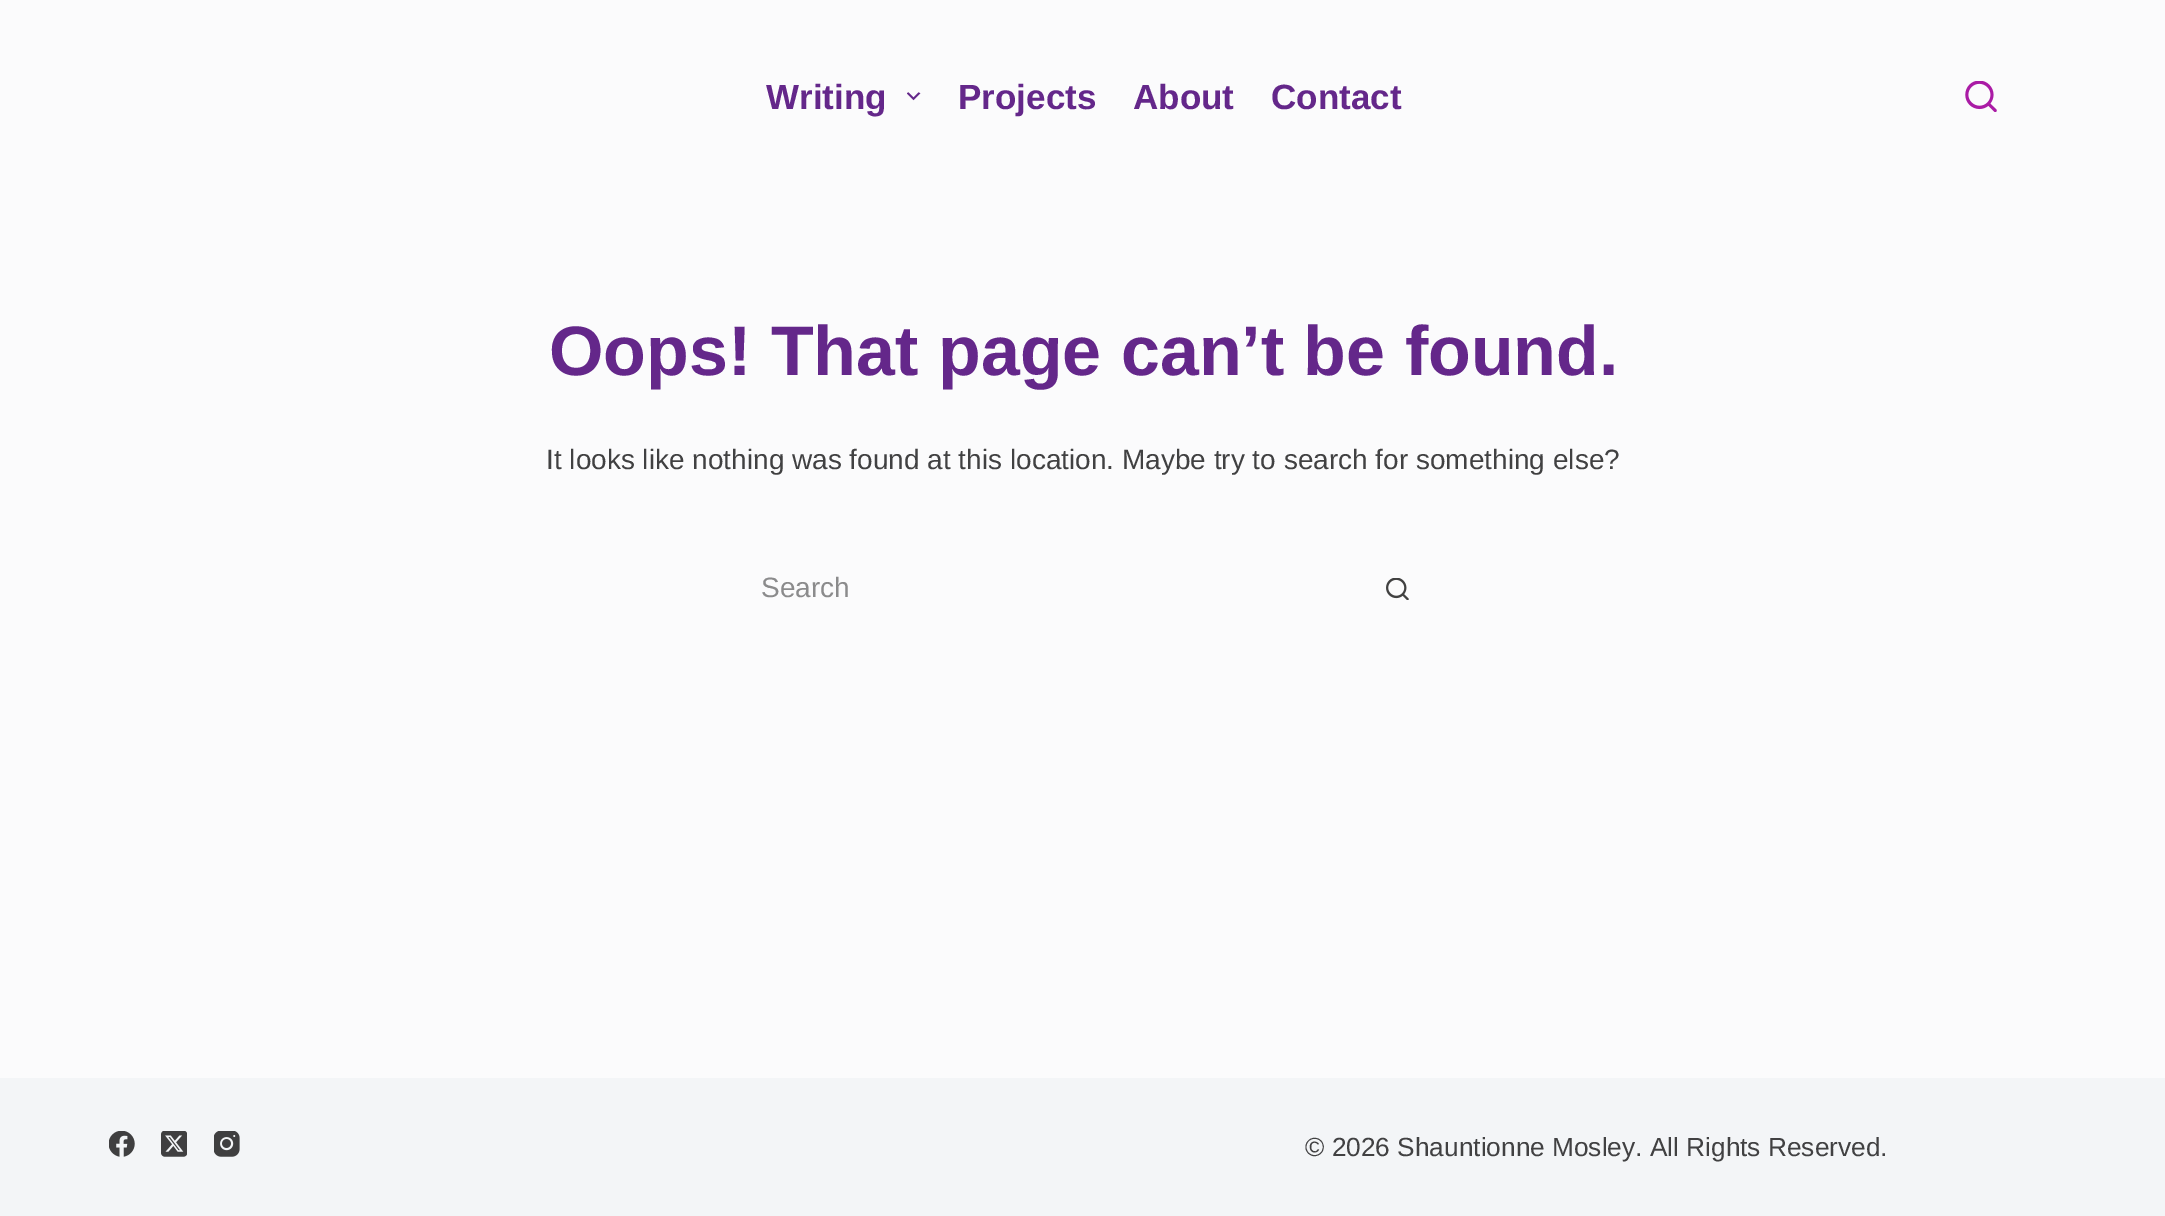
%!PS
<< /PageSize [2165 1216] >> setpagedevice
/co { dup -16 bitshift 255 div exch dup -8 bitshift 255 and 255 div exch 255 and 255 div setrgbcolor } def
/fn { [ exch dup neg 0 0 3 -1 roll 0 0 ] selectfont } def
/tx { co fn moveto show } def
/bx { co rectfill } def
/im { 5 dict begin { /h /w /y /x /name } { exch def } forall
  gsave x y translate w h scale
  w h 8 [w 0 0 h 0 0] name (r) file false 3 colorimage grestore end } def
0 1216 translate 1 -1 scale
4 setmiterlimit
0 0 2165 1216 16#FBFBFC bx
(media/1.raw) 907 92 14 9 im
(media/2.raw) 1965 81 32 31 im
(media/3.raw) 1386 578 23 22 im
0 1078 2165 138 16#F3F5F7 bx
(media/4.raw) 109 1131 26 26 im
(media/5.raw) 161 1131 26 26 im
(media/6.raw) 214 1131 26 26 im
(Writing) 766 109 /LiberationSans-Bold 35 16#64278A tx
(Projects) 958 109 /LiberationSans-Bold 35 16#64278A tx
(About) 1133 109 /LiberationSans-Bold 35 16#64278A tx
(Contact) 1271 109 /LiberationSans-Bold 35 16#64278A tx
(Oops! That page can’t be found.) 549 375 /LiberationSans-Bold 70 16#64278A tx
(It looks like nothing was found at this location. Maybe try to search for something else?) 546 469 /LiberationSans-Regular 28 16#414142 tx
(Search) 761 597 /LiberationSans-Regular 28 16#8B8B8C tx
(© 2026 Shauntionne Mosley. All Rights Reserved.) 1305 1156 /LiberationSans-Regular 26.25 16#414142 tx
showpage
